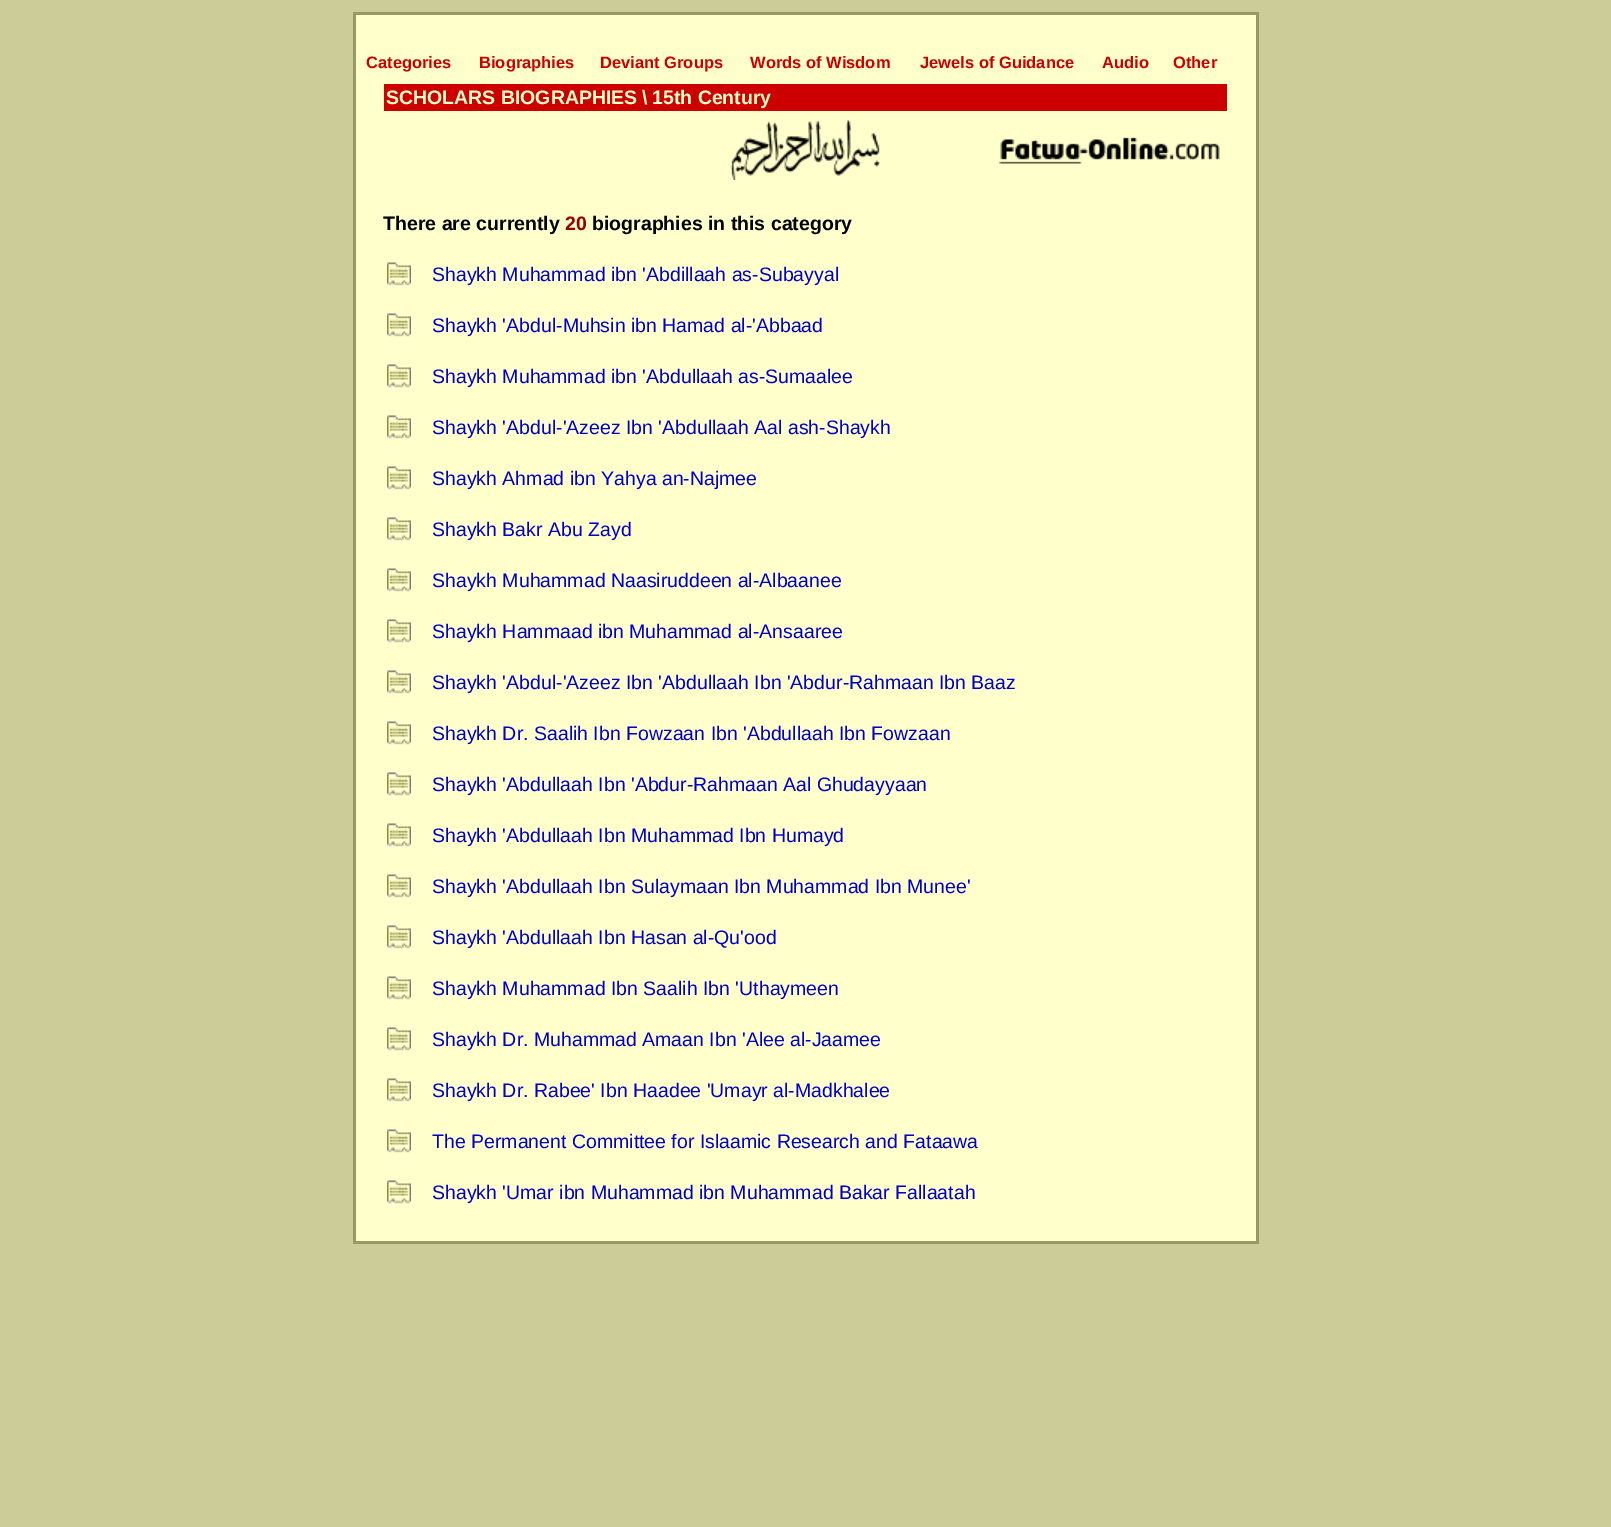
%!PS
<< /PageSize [1611 1527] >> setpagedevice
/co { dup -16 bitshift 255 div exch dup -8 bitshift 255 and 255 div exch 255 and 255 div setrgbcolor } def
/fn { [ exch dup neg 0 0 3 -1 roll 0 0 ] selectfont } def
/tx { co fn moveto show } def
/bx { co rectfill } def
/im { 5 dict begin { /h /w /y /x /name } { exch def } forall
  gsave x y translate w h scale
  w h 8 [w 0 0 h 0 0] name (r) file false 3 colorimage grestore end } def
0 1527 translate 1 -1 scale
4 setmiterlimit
0 0 1611 1527 16#CCCC99 bx
353 12 906 1232 16#999966 bx
356 15 900 1226 16#FFFFCC bx
384 84 843 27 16#CC0000 bx
(media/1.raw) 730 120 150 60 im
(media/2.raw) 999 137 221 27 im
(media/3.raw) 387 262 24 24 im
(media/3.raw) 387 313 24 24 im
(media/3.raw) 387 364 24 24 im
(media/3.raw) 387 415 24 24 im
(media/3.raw) 387 466 24 24 im
(media/3.raw) 387 517 24 24 im
(media/3.raw) 387 568 24 24 im
(media/3.raw) 387 619 24 24 im
(media/3.raw) 387 670 24 24 im
(media/3.raw) 387 721 24 24 im
(media/3.raw) 387 772 24 24 im
(media/3.raw) 387 823 24 24 im
(media/3.raw) 387 874 24 24 im
(media/3.raw) 387 925 24 24 im
(media/3.raw) 387 976 24 24 im
(media/3.raw) 387 1027 24 24 im
(media/3.raw) 387 1078 24 24 im
(media/3.raw) 387 1129 24 24 im
(media/3.raw) 387 1180 24 24 im
(Categories) 366 68 /LiberationSans-Bold 16.5 16#CC0000 tx
(Biographies) 479 68 /LiberationSans-Bold 16.5 16#CC0000 tx
(Deviant Groups) 600 68 /LiberationSans-Bold 16.5 16#CC0000 tx
(Words of Wisdom) 750 68 /LiberationSans-Bold 16.5 16#CC0000 tx
(Jewels of Guidance) 920 68 /LiberationSans-Bold 16.5 16#CC0000 tx
(Audio) 1102 68 /LiberationSans-Bold 16.5 16#CC0000 tx
(Other) 1173 68 /LiberationSans-Bold 16.5 16#CC0000 tx
(SCHOLARS BIOGRAPHIES) 386 104 /LiberationSans-Bold 19.5 16#FFFFCC tx
(\\) 642 104 /LiberationSans-Bold 19.5 16#FFFFCC tx
(15th Century) 652 104 /LiberationSans-Bold 19.5 16#FFFFCC tx
(There are currently) 383 230 /LiberationSans-Bold 19.5 16#000000 tx
(20) 565 230 /LiberationSans-Bold 19.5 16#990000 tx
(biographies in this category) 592 230 /LiberationSans-Bold 19.5 16#000000 tx
(Shaykh Muhammad ibn 'Abdillaah as-Subayyal) 432 281 /LiberationSans-Regular 19.5 16#0000CC tx
(Shaykh 'Abdul-Muhsin ibn Hamad al-'Abbaad) 432 332 /LiberationSans-Regular 19.5 16#0000CC tx
(Shaykh Muhammad ibn 'Abdullaah as-Sumaalee) 432 383 /LiberationSans-Regular 19.5 16#0000CC tx
(Shaykh 'Abdul-'Azeez Ibn 'Abdullaah Aal ash-Shaykh) 432 434 /LiberationSans-Regular 19.5 16#0000CC tx
(Shaykh Ahmad ibn Yahya an-Najmee) 432 485 /LiberationSans-Regular 19.5 16#0000CC tx
(Shaykh Bakr Abu Zayd) 432 536 /LiberationSans-Regular 19.5 16#0000CC tx
(Shaykh Muhammad Naasiruddeen al-Albaanee) 432 587 /LiberationSans-Regular 19.5 16#0000CC tx
(Shaykh Hammaad ibn Muhammad al-Ansaaree) 432 638 /LiberationSans-Regular 19.5 16#0000CC tx
(Shaykh 'Abdul-'Azeez Ibn 'Abdullaah Ibn 'Abdur-Rahmaan Ibn Baaz) 432 689 /LiberationSans-Regular 19.5 16#0000CC tx
(Shaykh Dr. Saalih Ibn Fowzaan Ibn 'Abdullaah Ibn Fowzaan) 432 740 /LiberationSans-Regular 19.5 16#0000CC tx
(Shaykh 'Abdullaah Ibn 'Abdur-Rahmaan Aal Ghudayyaan) 432 791 /LiberationSans-Regular 19.5 16#0000CC tx
(Shaykh 'Abdullaah Ibn Muhammad Ibn Humayd) 432 842 /LiberationSans-Regular 19.5 16#0000CC tx
(Shaykh 'Abdullaah Ibn Sulaymaan Ibn Muhammad Ibn Munee') 432 893 /LiberationSans-Regular 19.5 16#0000CC tx
(Shaykh 'Abdullaah Ibn Hasan al-Qu'ood) 432 944 /LiberationSans-Regular 19.5 16#0000CC tx
(Shaykh Muhammad Ibn Saalih Ibn 'Uthaymeen) 432 995 /LiberationSans-Regular 19.5 16#0000CC tx
(Shaykh Dr. Muhammad Amaan Ibn 'Alee al-Jaamee) 432 1046 /LiberationSans-Regular 19.5 16#0000CC tx
(Shaykh Dr. Rabee' Ibn Haadee 'Umayr al-Madkhalee) 432 1097 /LiberationSans-Regular 19.5 16#0000CC tx
(The Permanent Committee for Islaamic Research and Fataawa) 432 1148 /LiberationSans-Regular 19.5 16#0000CC tx
(Shaykh 'Umar ibn Muhammad ibn Muhammad Bakar Fallaatah) 432 1199 /LiberationSans-Regular 19.5 16#0000CC tx
showpage
